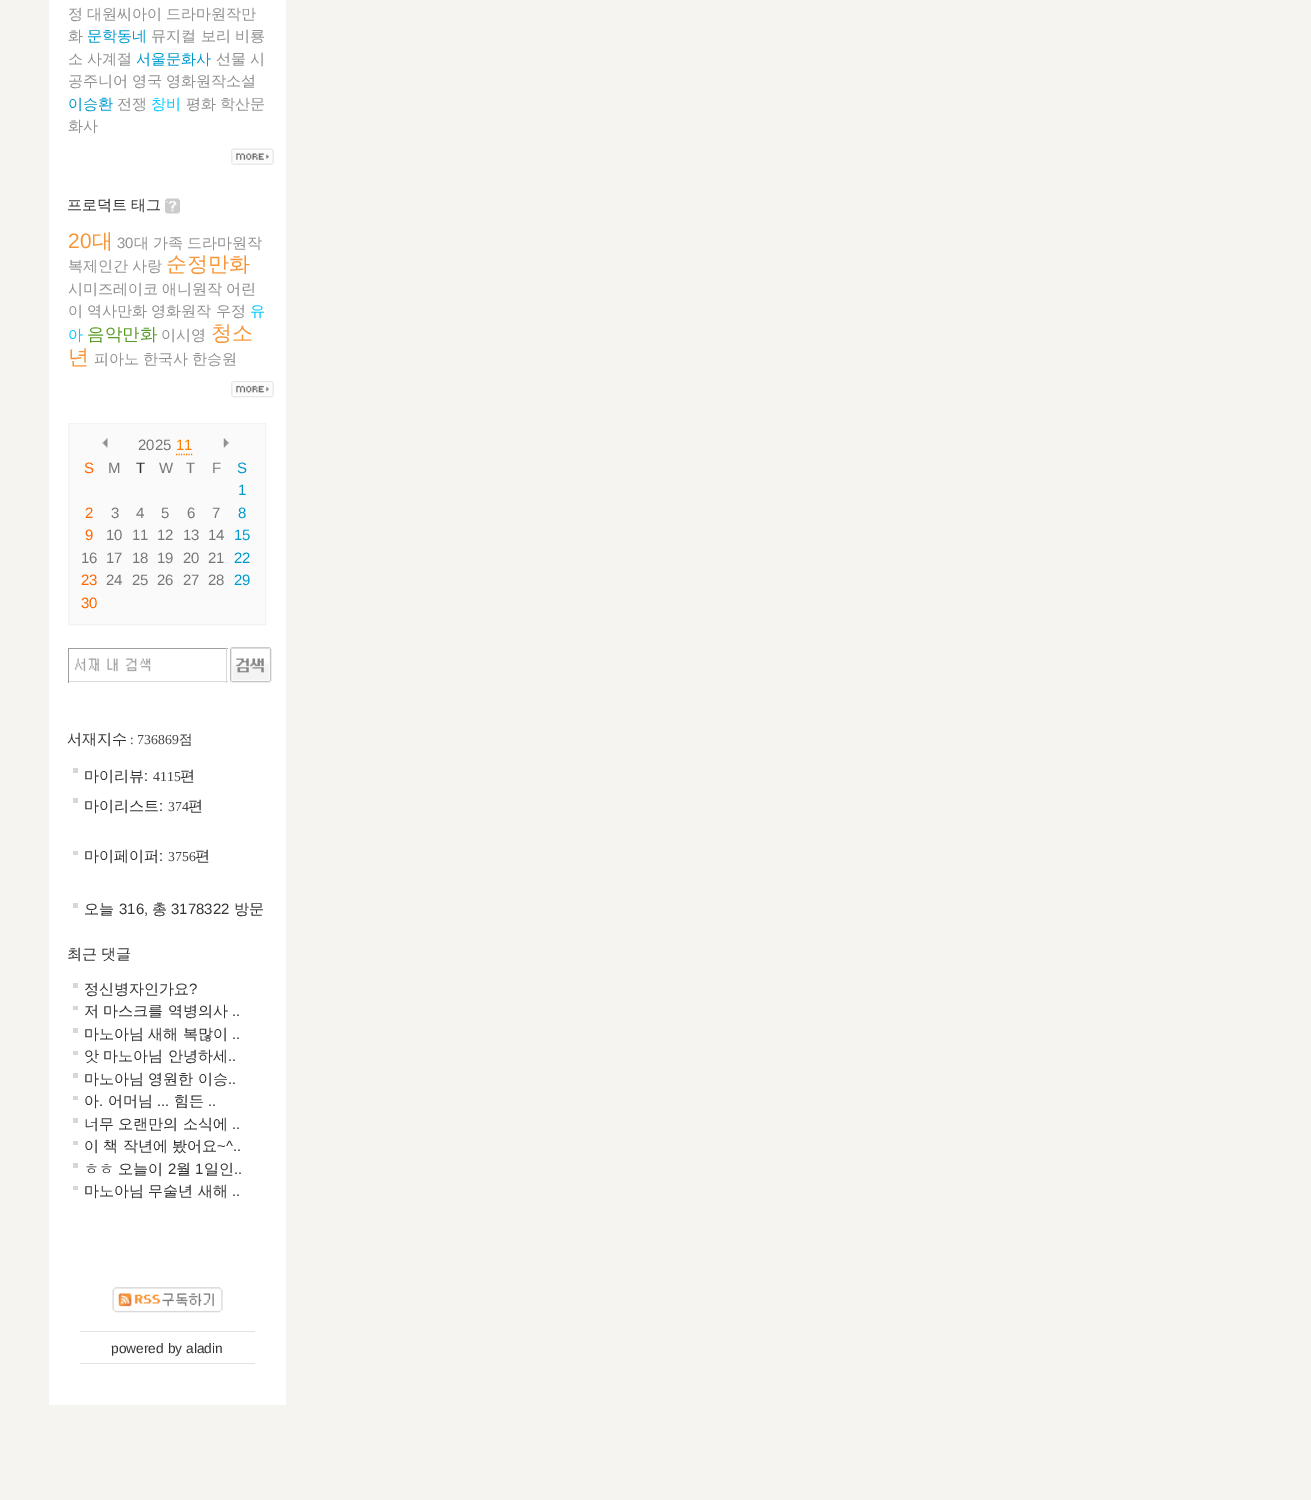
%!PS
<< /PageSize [1311 1500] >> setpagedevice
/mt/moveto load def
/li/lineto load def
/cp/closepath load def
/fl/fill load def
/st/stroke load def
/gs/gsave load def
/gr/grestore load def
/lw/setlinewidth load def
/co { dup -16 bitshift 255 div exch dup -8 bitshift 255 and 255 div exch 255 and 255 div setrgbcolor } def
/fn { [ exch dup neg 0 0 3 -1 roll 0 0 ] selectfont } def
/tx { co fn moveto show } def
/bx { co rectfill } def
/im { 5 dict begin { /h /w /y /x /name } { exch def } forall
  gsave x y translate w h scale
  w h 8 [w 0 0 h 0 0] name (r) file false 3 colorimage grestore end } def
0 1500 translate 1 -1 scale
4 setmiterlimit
0 0 1311 1500 16#F5F4F0 bx
49 0 237 1405 16#FFFFFF bx
(media/1.raw) 231 148 43 17 im
(media/2.raw) 165 198 15 16 im
(media/3.raw) 231 381 43 17 im
16#FAFAFA co
68.5 423.5 mt 265.5 423.5 li 265.5 624.5 li 68.5 624.5 li cp gs fl gr
16#F3F3F3 co
st
(media/4.raw) 102 438 6 10 im
16#FF7E00 co
1.2 lw
[1.25 1.25] 0 setdash
176 454.5 mt 192.5 454.5 li st
(media/5.raw) 223 438 6 10 im
(media/6.raw) 74 658 77 14 im
68 648 160 1 16#9E9E9E bx
226 648 1 35 16#D9D9D9 bx
68 681 160 1 16#D9D9D9 bx
68 648 1 35 16#9E9E9E bx
(media/7.raw) 230 647 42 36 im
73 768 5 5 16#D7D7D7 bx
73 798 5 5 16#D7D7D7 bx
73 851 5 4 16#D7D7D7 bx
73 903 5 5 16#D7D7D7 bx
73 983 5 5 16#D7D7D7 bx
73 1006 5 4 16#D7D7D7 bx
73 1028 5 5 16#D7D7D7 bx
73 1051 5 4 16#D7D7D7 bx
73 1073 5 5 16#D7D7D7 bx
73 1096 5 4 16#D7D7D7 bx
73 1118 5 5 16#D7D7D7 bx
73 1141 5 4 16#D7D7D7 bx
73 1163 5 5 16#D7D7D7 bx
73 1186 5 4 16#D7D7D7 bx
(media/8.raw) 112 1287 111 26 im
80 1331 175 1 16#E3E3E3 bx
80 1363 175 1 16#E3E3E3 bx
(정) 68 19 /WenQuanYiZenHei-Medium 15 16#919191 tx
(대원씨아이) 87 19 /WenQuanYiZenHei-Medium 15 16#919191 tx
(드라마원작만) 166 19 /WenQuanYiZenHei-Medium 15 16#919191 tx
(화) 68 41 /WenQuanYiZenHei-Medium 15 16#919191 tx
(문학동네) 87 41 /WenQuanYiZenHei-Medium 15 16#0099CC tx
(뮤지컬) 151 41 /WenQuanYiZenHei-Medium 15 16#919191 tx
(보리) 201 41 /WenQuanYiZenHei-Medium 15 16#919191 tx
(비룡) 235 41 /WenQuanYiZenHei-Medium 15 16#919191 tx
(소) 68 64 /WenQuanYiZenHei-Medium 15 16#919191 tx
(사계절) 87 64 /WenQuanYiZenHei-Medium 15 16#919191 tx
(서울문화사) 136 64 /WenQuanYiZenHei-Medium 15 16#0099CC tx
(선물) 216 64 /WenQuanYiZenHei-Medium 15 16#919191 tx
(시) 250 64 /WenQuanYiZenHei-Medium 15 16#919191 tx
(공주니어) 68 86 /WenQuanYiZenHei-Medium 15 16#919191 tx
(영국) 132 86 /WenQuanYiZenHei-Medium 15 16#919191 tx
(영화원작소설) 166 86 /WenQuanYiZenHei-Medium 15 16#919191 tx
(이승환) 68 109 /WenQuanYiZenHei-Medium 15 16#0099CC tx
(전쟁) 117 109 /WenQuanYiZenHei-Medium 15 16#919191 tx
(창비) 151 109 /WenQuanYiZenHei-Medium 15 16#00CCFF tx
(평화) 186 109 /WenQuanYiZenHei-Medium 15 16#919191 tx
(학산문) 220 109 /WenQuanYiZenHei-Medium 15 16#919191 tx
(화사) 68 131 /WenQuanYiZenHei-Medium 15 16#919191 tx
(프로덕트 태그) 67 210 /WenQuanYiZenHei-Medium 15 16#333333 tx
(20) 68 248 /LiberationSans-Regular 21 16#F79638 tx
(대) 92 248 /WenQuanYiZenHei-Medium 21 16#F79638 tx
(30) 117 248 /LiberationSans-Regular 15 16#919191 tx
(대) 134 248 /WenQuanYiZenHei-Medium 15 16#919191 tx
(가족) 153 248 /WenQuanYiZenHei-Medium 15 16#919191 tx
(드라마원작) 187 248 /WenQuanYiZenHei-Medium 15 16#919191 tx
(복제인간) 68 271 /WenQuanYiZenHei-Medium 15 16#919191 tx
(사랑) 132 271 /WenQuanYiZenHei-Medium 15 16#919191 tx
(순정만화) 166 271 /WenQuanYiZenHei-Medium 21 16#F79638 tx
(시미즈레이코) 68 294 /WenQuanYiZenHei-Medium 15 16#919191 tx
(애니원작) 162 294 /WenQuanYiZenHei-Medium 15 16#919191 tx
(어린) 226 294 /WenQuanYiZenHei-Medium 15 16#919191 tx
(이) 68 316 /WenQuanYiZenHei-Medium 15 16#919191 tx
(역사만화) 87 316 /WenQuanYiZenHei-Medium 15 16#919191 tx
(영화원작) 151 316 /WenQuanYiZenHei-Medium 15 16#919191 tx
(우정) 216 316 /WenQuanYiZenHei-Medium 15 16#919191 tx
(유) 250 316 /WenQuanYiZenHei-Medium 15 16#00CCFF tx
(아) 68 340 /WenQuanYiZenHei-Medium 15 16#00CCFF tx
(음악만화) 87 340 /WenQuanYiZenHei-Medium 17.5 16#599B29 tx
(이시영) 161 340 /WenQuanYiZenHei-Medium 15 16#919191 tx
(청소) 211 340 /WenQuanYiZenHei-Medium 21 16#F79638 tx
(년) 68 364 /WenQuanYiZenHei-Medium 21 16#F79638 tx
(피아노) 94 364 /WenQuanYiZenHei-Medium 15 16#919191 tx
(한국사) 143 364 /WenQuanYiZenHei-Medium 15 16#919191 tx
(한승원) 192 364 /WenQuanYiZenHei-Medium 15 16#919191 tx
(2025) 138 450 /LiberationSans-Regular 15 16#777777 tx
(11) 176 450 /LiberationSans-Regular 15 16#FF7E00 tx
(S) 84 473 /LiberationSans-Regular 15 16#FF6600 tx
(M) 108 473 /LiberationSans-Regular 15 16#777777 tx
(T) 136 473 /LiberationSans-Regular 15 16#333333 tx
(W) 159 473 /LiberationSans-Regular 15 16#777777 tx
(T) 186 473 /LiberationSans-Regular 15 16#777777 tx
(F) 212 473 /LiberationSans-Regular 15 16#777777 tx
(S) 237 473 /LiberationSans-Regular 15 16#0099CC tx
(1) 238 495 /LiberationSans-Regular 15 16#0099CC tx
(2) 85 518 /LiberationSans-Regular 15 16#FF6600 tx
(3) 111 518 /LiberationSans-Regular 15 16#777777 tx
(4) 136 518 /LiberationSans-Regular 15 16#777777 tx
(5) 161 518 /LiberationSans-Regular 15 16#777777 tx
(6) 187 518 /LiberationSans-Regular 15 16#777777 tx
(7) 212 518 /LiberationSans-Regular 15 16#777777 tx
(8) 238 518 /LiberationSans-Regular 15 16#0099CC tx
(9) 85 540 /LiberationSans-Regular 15 16#FF6600 tx
(10) 106 540 /LiberationSans-Regular 15 16#777777 tx
(11) 132 540 /LiberationSans-Regular 15 16#777777 tx
(12) 157 540 /LiberationSans-Regular 15 16#777777 tx
(13) 183 540 /LiberationSans-Regular 15 16#777777 tx
(14) 208 540 /LiberationSans-Regular 15 16#777777 tx
(15) 234 540 /LiberationSans-Regular 15 16#0099CC tx
(16) 81 563 /LiberationSans-Regular 15 16#777777 tx
(17) 106 563 /LiberationSans-Regular 15 16#777777 tx
(18) 132 563 /LiberationSans-Regular 15 16#777777 tx
(19) 157 563 /LiberationSans-Regular 15 16#777777 tx
(20) 183 563 /LiberationSans-Regular 15 16#777777 tx
(21) 208 563 /LiberationSans-Regular 15 16#777777 tx
(22) 234 563 /LiberationSans-Regular 15 16#0099CC tx
(23) 81 585 /LiberationSans-Regular 15 16#FF6600 tx
(24) 106 585 /LiberationSans-Regular 15 16#777777 tx
(25) 132 585 /LiberationSans-Regular 15 16#777777 tx
(26) 157 585 /LiberationSans-Regular 15 16#777777 tx
(27) 183 585 /LiberationSans-Regular 15 16#777777 tx
(28) 208 585 /LiberationSans-Regular 15 16#777777 tx
(29) 234 585 /LiberationSans-Regular 15 16#0099CC tx
(30) 81 608 /LiberationSans-Regular 15 16#FF6600 tx
(서재지수) 67 744 /WenQuanYiZenHei-Medium 15 16#333333 tx
(: 736869) 130 744 /LiberationSerif-Regular 13.75 16#454545 tx
(점) 179 744 /WenQuanYiZenHei-Medium 13.75 16#454545 tx
(마이리뷰) 84 781 /WenQuanYiZenHei-Medium 15 16#333333 tx
(:) 144 781 /LiberationSans-Regular 15 16#333333 tx
(4115) 153 781 /LiberationSerif-Regular 13.75 16#454545 tx
(편) 180 781 /WenQuanYiZenHei-Medium 15 16#333333 tx
(마이리스트) 84 811 /WenQuanYiZenHei-Medium 15 16#333333 tx
(:) 159 811 /LiberationSans-Regular 15 16#333333 tx
(374) 168 811 /LiberationSerif-Regular 13.75 16#454545 tx
(편) 188 811 /WenQuanYiZenHei-Medium 15 16#333333 tx
(마이페이퍼) 84 861 /WenQuanYiZenHei-Medium 15 16#333333 tx
(:) 159 861 /LiberationSans-Regular 15 16#333333 tx
(3756) 168 861 /LiberationSerif-Regular 13.75 16#454545 tx
(편) 195 861 /WenQuanYiZenHei-Medium 15 16#333333 tx
(오늘) 84 914 /WenQuanYiZenHei-Medium 15 16#333333 tx
(316,) 119 914 /LiberationSans-Regular 15 16#333333 tx
(총) 152 914 /WenQuanYiZenHei-Medium 15 16#333333 tx
(3178322) 171 914 /LiberationSans-Regular 15 16#333333 tx
(방문) 234 914 /WenQuanYiZenHei-Medium 15 16#333333 tx
(최근 댓글) 67 959 /WenQuanYiZenHei-Medium 15 16#333333 tx
(정신병자인가요) 84 994 /WenQuanYiZenHei-Medium 15 16#333333 tx
(?) 189 994 /LiberationSans-Regular 15 16#333333 tx
(저 마스크를 역병의사) 84 1016 /WenQuanYiZenHei-Medium 15 16#333333 tx
(..) 232 1016 /LiberationSans-Regular 15 16#333333 tx
(마노아님 새해 복많이) 84 1039 /WenQuanYiZenHei-Medium 15 16#333333 tx
(..) 232 1039 /LiberationSans-Regular 15 16#333333 tx
(앗 마노아님 안녕하세) 84 1061 /WenQuanYiZenHei-Medium 15 16#333333 tx
(..) 228 1061 /LiberationSans-Regular 15 16#333333 tx
(마노아님 영원한 이승) 84 1084 /WenQuanYiZenHei-Medium 15 16#333333 tx
(..) 228 1084 /LiberationSans-Regular 15 16#333333 tx
(아) 84 1106 /WenQuanYiZenHei-Medium 15 16#333333 tx
(.) 99 1106 /LiberationSans-Regular 15 16#333333 tx
(어머님) 108 1106 /WenQuanYiZenHei-Medium 15 16#333333 tx
(...) 157 1106 /LiberationSans-Regular 15 16#333333 tx
(힘든) 174 1106 /WenQuanYiZenHei-Medium 15 16#333333 tx
(..) 208 1106 /LiberationSans-Regular 15 16#333333 tx
(너무 오랜만의 소식에) 84 1129 /WenQuanYiZenHei-Medium 15 16#333333 tx
(..) 232 1129 /LiberationSans-Regular 15 16#333333 tx
(이 책 작년에 봤어요) 84 1151 /WenQuanYiZenHei-Medium 15 16#333333 tx
(~^..) 217 1151 /LiberationSans-Regular 15 16#333333 tx
(ㅎㅎ 오늘이) 84 1174 /WenQuanYiZenHei-Medium 15 16#333333 tx
(2) 168 1174 /LiberationSans-Regular 15 16#333333 tx
(월) 176 1174 /WenQuanYiZenHei-Medium 15 16#333333 tx
(1) 195 1174 /LiberationSans-Regular 15 16#333333 tx
(일인) 204 1174 /WenQuanYiZenHei-Medium 15 16#333333 tx
(..) 234 1174 /LiberationSans-Regular 15 16#333333 tx
(마노아님 무술년 새해) 84 1196 /WenQuanYiZenHei-Medium 15 16#333333 tx
(..) 232 1196 /LiberationSans-Regular 15 16#333333 tx
(powered by aladin) 111 1353 /LiberationSans-Regular 13.75 16#333333 tx
showpage
